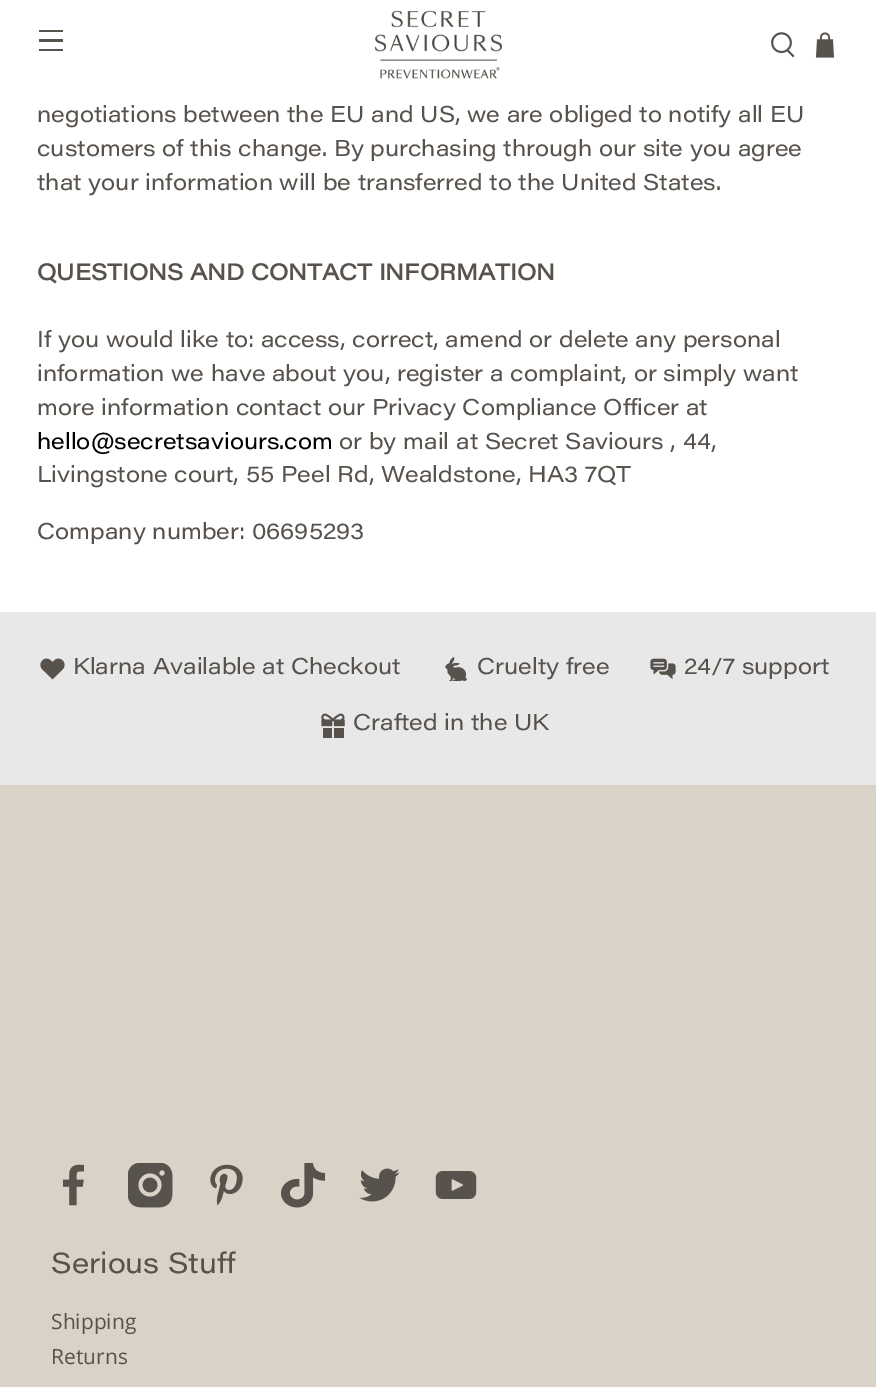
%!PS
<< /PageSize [876 1387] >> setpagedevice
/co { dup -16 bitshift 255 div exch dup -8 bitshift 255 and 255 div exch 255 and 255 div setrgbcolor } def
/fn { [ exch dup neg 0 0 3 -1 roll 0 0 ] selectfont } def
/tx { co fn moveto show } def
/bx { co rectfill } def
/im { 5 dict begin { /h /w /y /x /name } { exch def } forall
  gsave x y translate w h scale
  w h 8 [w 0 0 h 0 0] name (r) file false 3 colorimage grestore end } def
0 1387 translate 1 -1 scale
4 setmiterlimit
0 0 876 1387 16#FFFFFF bx
39 30 24 2 16#58524D bx
39 39 24 3 16#58524D bx
39 49 24 2 16#58524D bx
(media/1.raw) 374 10 128 69 im
(media/2.raw) 771 32 24 26 im
(media/3.raw) 815 32 20 26 im
0 612 876 173 16#E8E8E8 bx
(media/4.raw) 40 658 25 22 im
(media/5.raw) 445 657 22 25 im
(media/6.raw) 650 658 26 22 im
(media/7.raw) 321 713 24 25 im
0 785 876 602 16#D9D2C7 bx
(media/8.raw) 63 1164 21 42 im
(media/9.raw) 128 1163 45 45 im
(media/10.raw) 210 1164 33 42 im
(media/11.raw) 281 1163 45 45 im
(media/12.raw) 359 1168 41 34 im
(media/13.raw) 435 1171 42 28 im
(negotiations between the EU and US, we are obliged to notify all EU) 37 122 /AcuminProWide-Regular 22.5 16#58524D tx
(customers of this change. By purchasing through our site you agree) 37 156 /AcuminProWide-Regular 22.5 16#58524D tx
(that your information will be transferred to the United States.) 37 190 /AcuminProWide-Regular 22.5 16#58524D tx
(QUESTIONS AND CONTACT INFORMATION) 37 280 /AcuminProWide-Bold 22.5 16#58524D tx
(If you would like to: access, correct, amend or delete any personal) 37 347 /AcuminProWide-Regular 22.5 16#58524D tx
(information we have about you, register a complaint, or simply want) 37 381 /AcuminProWide-Regular 22.5 16#58524D tx
(more information contact our Privacy Compliance Officer at) 37 415 /AcuminProWide-Regular 22.5 16#58524D tx
(hello@secretsaviours.com) 37 449 /AcuminProWide-Regular 22.5 16#000000 tx
(or by mail at Secret Saviours , 44,) 339 449 /AcuminProWide-Regular 22.5 16#58524D tx
(Livingstone court, 55 Peel Rd, Wealdstone, HA3 7QT) 37 482 /AcuminProWide-Regular 22.5 16#58524D tx
(Company number: 06695293) 37 539 /AcuminProWide-Regular 22.5 16#58524D tx
(Klarna Available at Checkout) 73 674 /AcuminProWide-Regular 22.5 16#58524D tx
(Cruelty free) 477 674 /AcuminProWide-Regular 22.5 16#58524D tx
(24/7 support) 684 674 /AcuminProWide-Regular 22.5 16#58524D tx
(Crafted in the UK) 353 730 /AcuminProWide-Regular 22.5 16#58524D tx
(Serious Stuff) 51 1273 /AcuminProWide-Regular 28.5 16#58524D tx
(Shipping) 51 1329 /OpenSans-Regular 21 16#58524D tx
(Returns) 51 1364 /OpenSans-Regular 21 16#58524D tx
showpage
